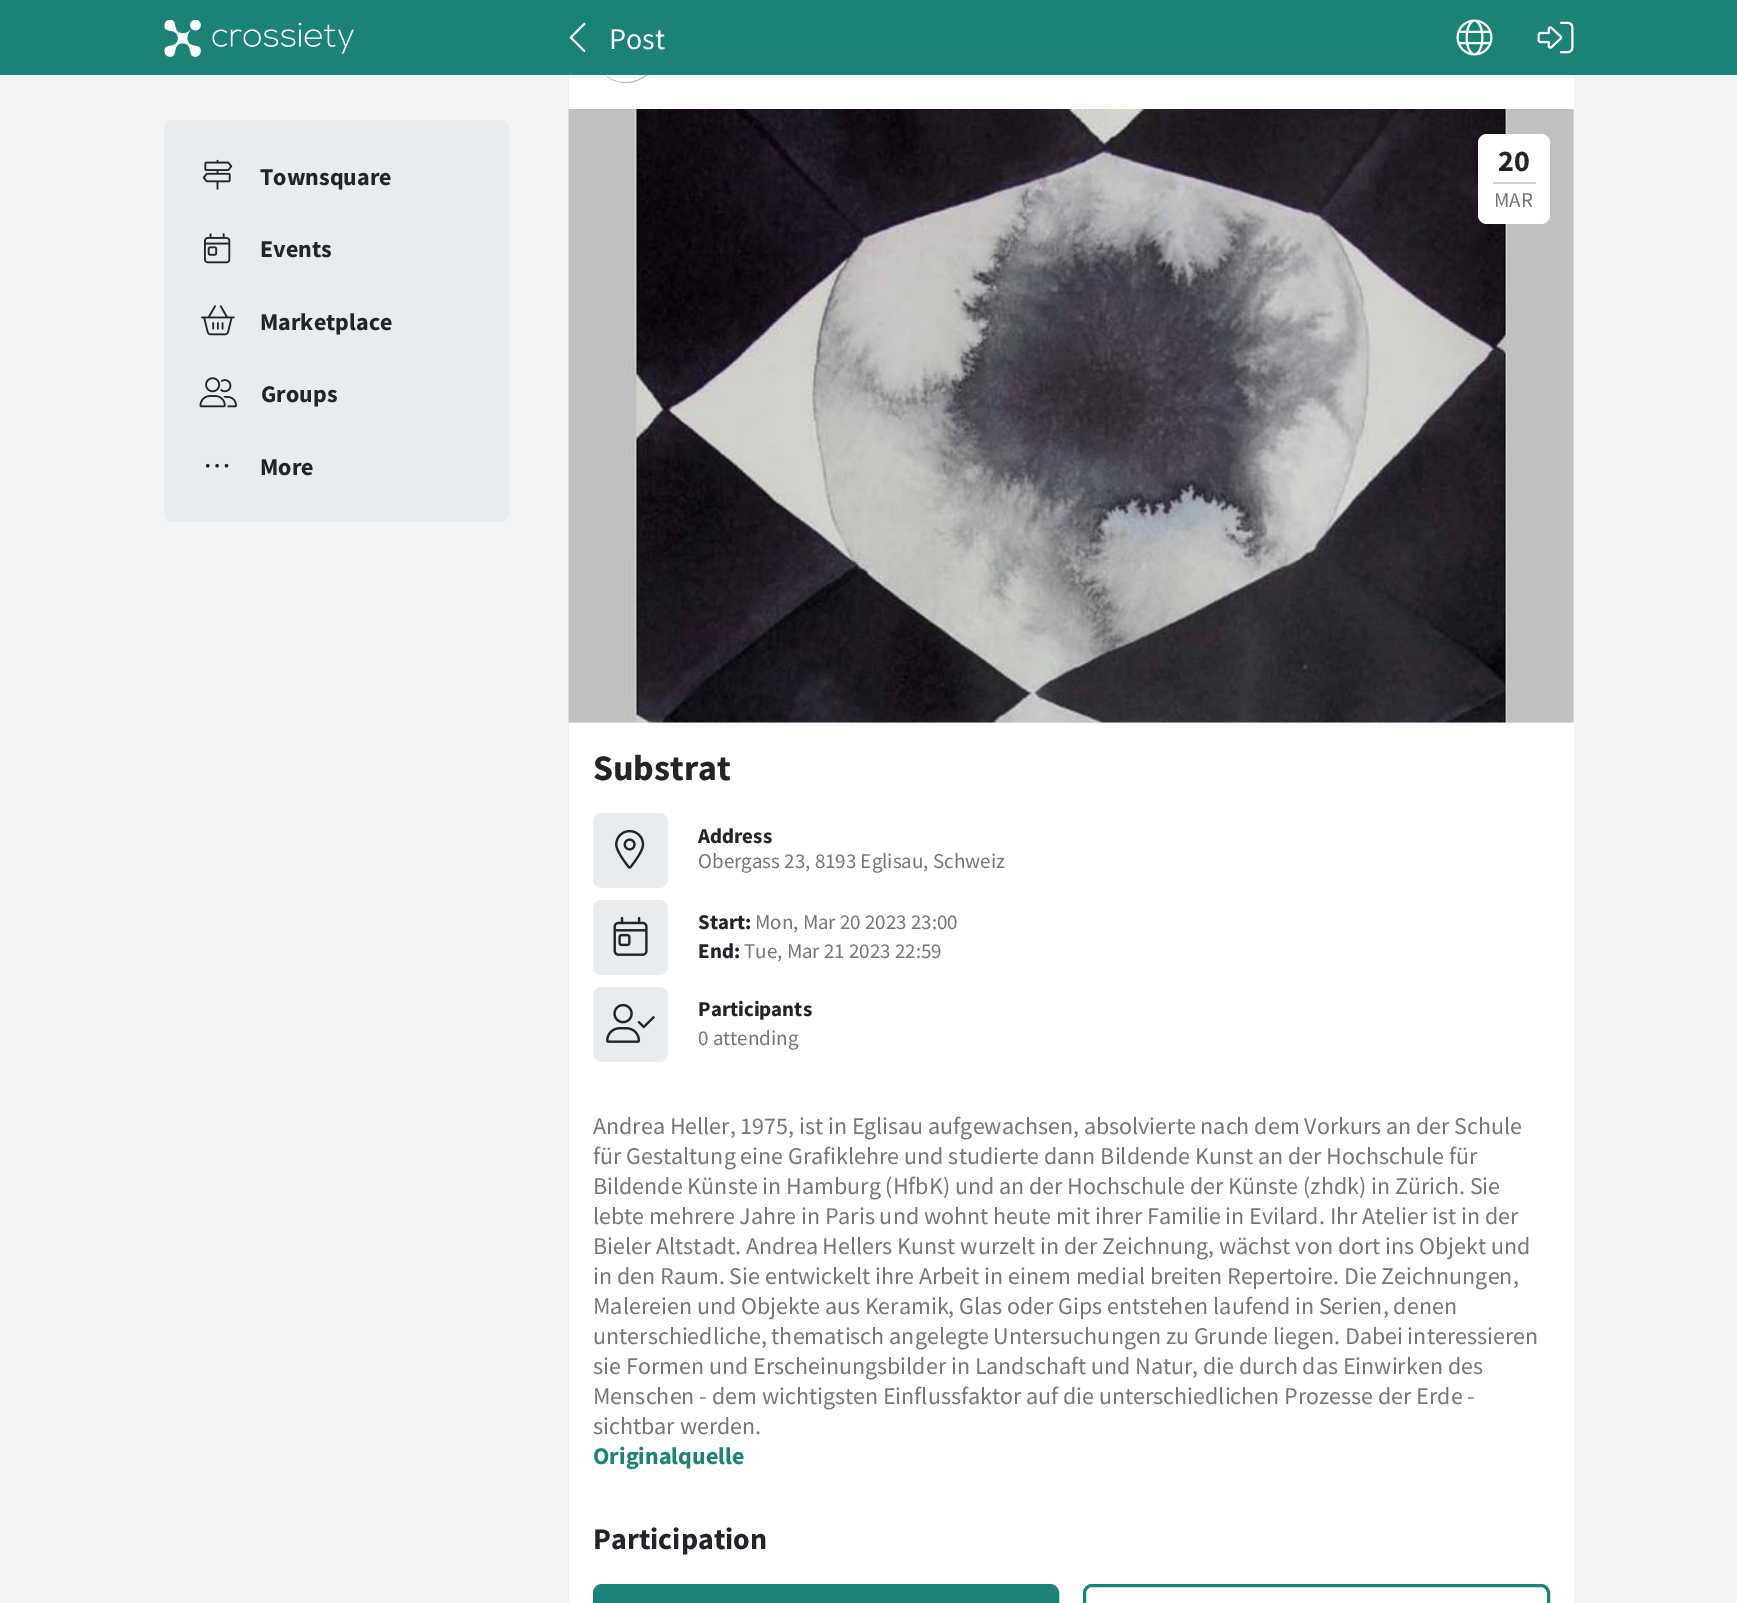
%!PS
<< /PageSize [1737 1603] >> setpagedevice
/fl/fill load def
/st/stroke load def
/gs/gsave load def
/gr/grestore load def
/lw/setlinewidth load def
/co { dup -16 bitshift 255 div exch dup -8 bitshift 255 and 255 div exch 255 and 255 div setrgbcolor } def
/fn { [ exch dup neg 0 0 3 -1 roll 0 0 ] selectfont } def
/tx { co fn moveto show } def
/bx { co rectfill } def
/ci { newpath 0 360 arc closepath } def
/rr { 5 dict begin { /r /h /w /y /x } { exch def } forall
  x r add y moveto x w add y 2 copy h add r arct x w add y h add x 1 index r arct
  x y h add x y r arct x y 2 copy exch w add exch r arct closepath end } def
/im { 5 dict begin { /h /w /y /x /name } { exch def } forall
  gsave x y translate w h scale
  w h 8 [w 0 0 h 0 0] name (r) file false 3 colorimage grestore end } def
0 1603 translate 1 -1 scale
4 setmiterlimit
0 0 1737 1603 16#F1F3F5 bx
569 75 1005 1528 16#FFFFFF bx
16#ADB5BD co
626 50 33 ci fl
0 0 1737 75 16#1B8375 bx
(media/1.raw) 164 20 190 37 im
(media/2.raw) 569 22 17 31 im
(media/3.raw) 1456 19 37 37 im
(media/4.raw) 1537 21 37 33 im
16#E9ECEF co
164 120 345 402 9 rr fl
(media/5.raw) 202 159 31 31 im
(media/6.raw) 204 233 27 31 im
(media/7.raw) 201 305 34 31 im
(media/8.raw) 199 377 38 31 im
(media/9.raw) 205 463 24 5 im
(media/10.raw) 605 75 41 7 im
569 110 1005 613 16#E9ECEF bx
(media/11.raw) 568 109 1006 614 im
16#FFFFFF co
1478 134 72 90 9 rr fl
1493 182 43 2 16#CED4DA bx
16#E9ECEF co
593 813 75 75 9 rr fl
(media/12.raw) 615 829 30 40 im
593 900 75 75 9 rr fl
(media/13.raw) 613 916 35 40 im
593 987 75 75 9 rr fl
(media/14.raw) 606 1003 49 40 im
16#1B8375 co
594.5 1585.5 463 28 7.5 rr gs fl gr
3 lw
st
1084.5 1585.5 464 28 7.5 rr st
(Post) 609 49 /SourceSansPro-Regular 30 16#FFFFFF tx
(Townsquare) 260 185 /SourceSansPro-Bold 24 16#212529 tx
(Events) 260 257 /SourceSansPro-Bold 24 16#212529 tx
(Marketplace) 260 330 /SourceSansPro-Bold 24 16#212529 tx
(Groups) 261 402 /SourceSansPro-Bold 24 16#212529 tx
(More) 260 475 /SourceSansPro-Bold 24 16#212529 tx
(20) 1498 171 /SourceSansPro-Bold 30 16#212529 tx
(MAR) 1494 207 /SourceSansPro-Regular 21 16#767676 tx
(Substrat) 593 780 /SourceSansPro-Bold 36 16#212529 tx
(Address) 698 843 /SourceSansPro-Bold 21 16#212529 tx
(Obergass 23, 8193 Eglisau, Schweiz) 698 868 /SourceSansPro-Regular 21 16#767676 tx
(Start:) 698 929 /SourceSansPro-Bold 21 16#212529 tx
(Mon, Mar 20 2023 23:00) 755 929 /SourceSansPro-Regular 21 16#767676 tx
(End:) 698 958 /SourceSansPro-Bold 21 16#212529 tx
(Tue, Mar 21 2023 22:59) 744 958 /SourceSansPro-Regular 21 16#767676 tx
(Participants) 698 1016 /SourceSansPro-Bold 21 16#212529 tx
(0 attending) 698 1045 /SourceSansPro-Regular 21 16#767676 tx
(Andrea Heller, 1975, ist in Eglisau aufgewachsen, absolvierte nach dem Vorkurs an der Schule) 593 1134 /SourceSansPro-Regular 24 16#767676 tx
(für Gestaltung eine Grafiklehre und studierte dann Bildende Kunst an der Hochschule für) 593 1164 /SourceSansPro-Regular 24 16#767676 tx
(Bildende Künste in Hamburg \(HfbK\) und an der Hochschule der Künste \(zhdk\) in Zürich. Sie) 593 1194 /SourceSansPro-Regular 24 16#767676 tx
(lebte mehrere Jahre in Paris und wohnt heute mit ihrer Familie in Evilard. Ihr Atelier ist in der) 593 1224 /SourceSansPro-Regular 24 16#767676 tx
(Bieler Altstadt. Andrea Hellers Kunst wurzelt in der Zeichnung, wächst von dort ins Objekt und) 593 1254 /SourceSansPro-Regular 24 16#767676 tx
(in den Raum. Sie entwickelt ihre Arbeit in einem medial breiten Repertoire. Die Zeichnungen,) 593 1284 /SourceSansPro-Regular 24 16#767676 tx
(Malereien und Objekte aus Keramik, Glas oder Gips entstehen laufend in Serien, denen) 593 1314 /SourceSansPro-Regular 24 16#767676 tx
(unterschiedliche, thematisch angelegte Untersuchungen zu Grunde liegen. Dabei interessieren) 593 1344 /SourceSansPro-Regular 24 16#767676 tx
(sie Formen und Erscheinungsbilder in Landschaft und Natur, die durch das Einwirken des) 593 1374 /SourceSansPro-Regular 24 16#767676 tx
(Menschen - dem wichtigsten Einflussfaktor auf die unterschiedlichen Prozesse der Erde -) 593 1404 /SourceSansPro-Regular 24 16#767676 tx
(sichtbar werden.) 593 1434 /SourceSansPro-Regular 24 16#767676 tx
(Originalquelle) 593 1464 /SourceSansPro-Bold 24 16#1B8375 tx
(Participation) 593 1549 /SourceSansPro-Bold 30 16#212529 tx
showpage
